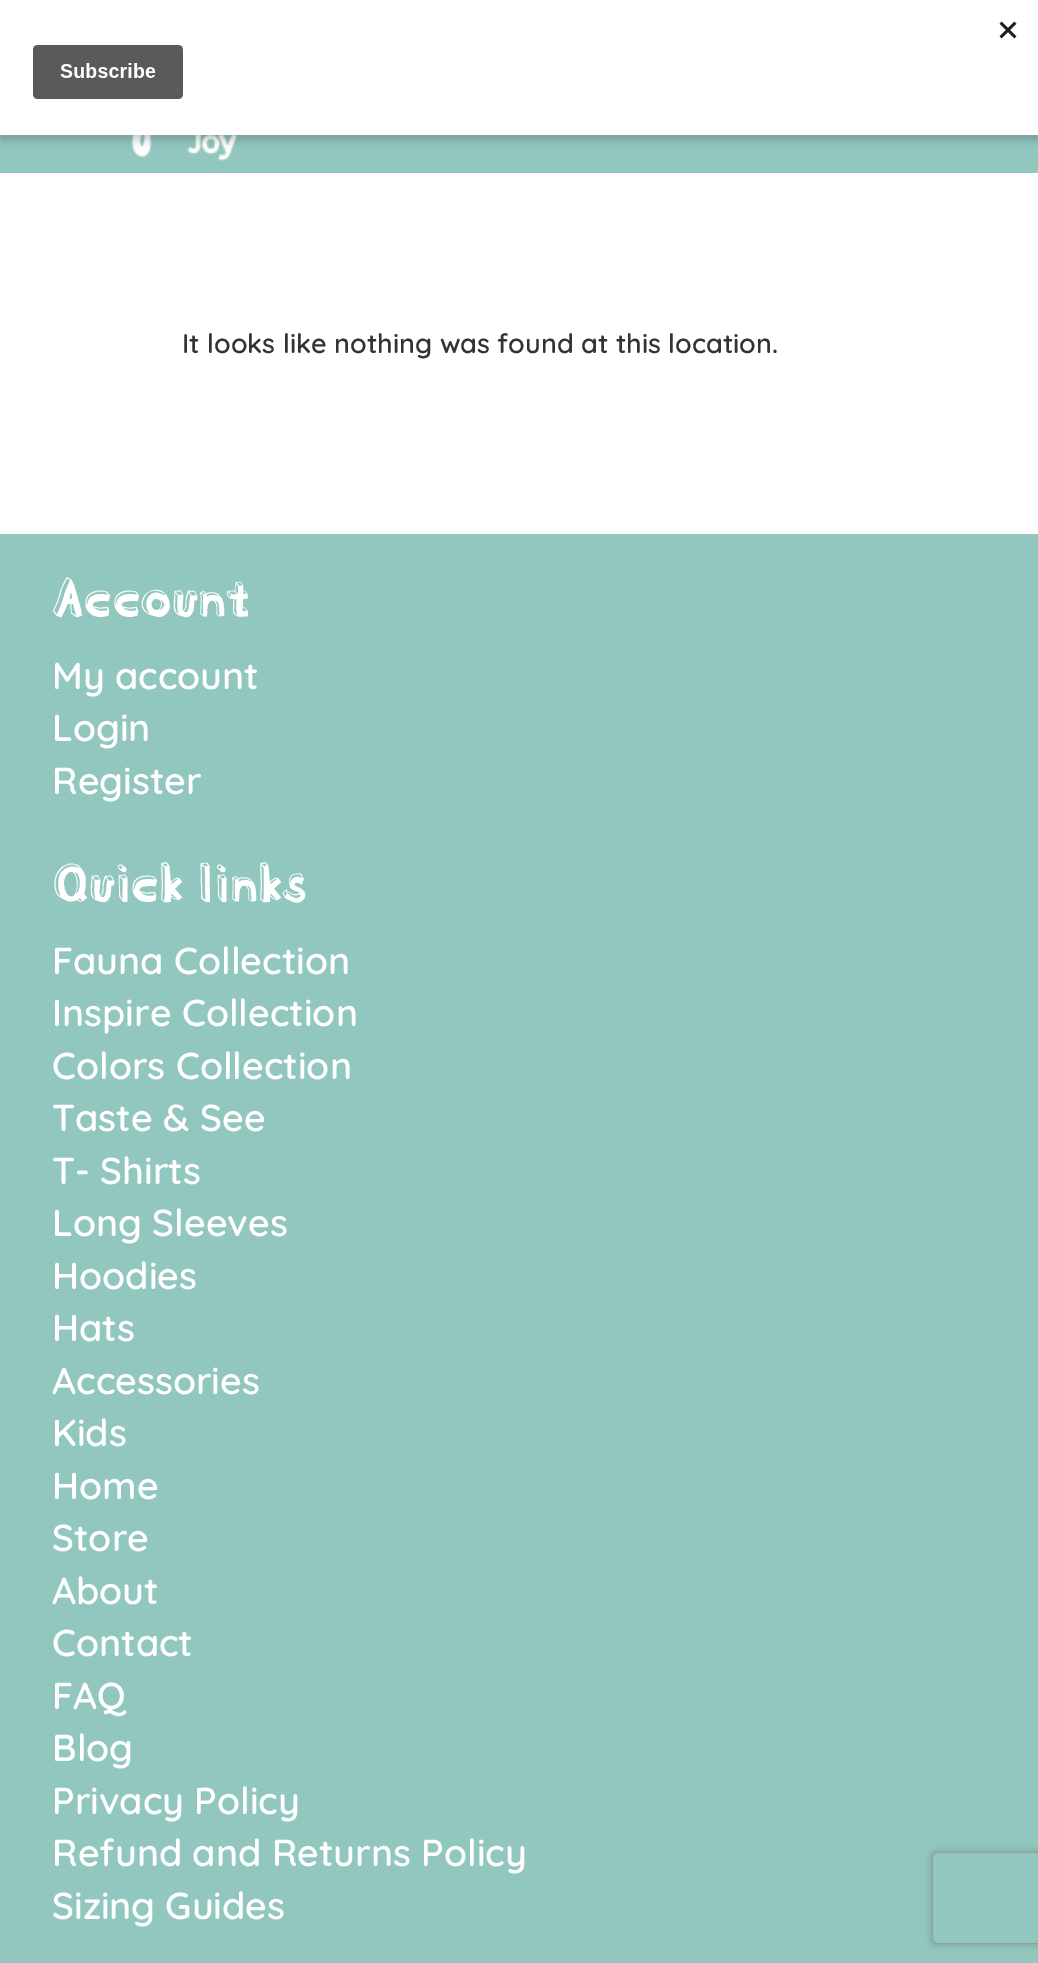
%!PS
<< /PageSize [1038 1963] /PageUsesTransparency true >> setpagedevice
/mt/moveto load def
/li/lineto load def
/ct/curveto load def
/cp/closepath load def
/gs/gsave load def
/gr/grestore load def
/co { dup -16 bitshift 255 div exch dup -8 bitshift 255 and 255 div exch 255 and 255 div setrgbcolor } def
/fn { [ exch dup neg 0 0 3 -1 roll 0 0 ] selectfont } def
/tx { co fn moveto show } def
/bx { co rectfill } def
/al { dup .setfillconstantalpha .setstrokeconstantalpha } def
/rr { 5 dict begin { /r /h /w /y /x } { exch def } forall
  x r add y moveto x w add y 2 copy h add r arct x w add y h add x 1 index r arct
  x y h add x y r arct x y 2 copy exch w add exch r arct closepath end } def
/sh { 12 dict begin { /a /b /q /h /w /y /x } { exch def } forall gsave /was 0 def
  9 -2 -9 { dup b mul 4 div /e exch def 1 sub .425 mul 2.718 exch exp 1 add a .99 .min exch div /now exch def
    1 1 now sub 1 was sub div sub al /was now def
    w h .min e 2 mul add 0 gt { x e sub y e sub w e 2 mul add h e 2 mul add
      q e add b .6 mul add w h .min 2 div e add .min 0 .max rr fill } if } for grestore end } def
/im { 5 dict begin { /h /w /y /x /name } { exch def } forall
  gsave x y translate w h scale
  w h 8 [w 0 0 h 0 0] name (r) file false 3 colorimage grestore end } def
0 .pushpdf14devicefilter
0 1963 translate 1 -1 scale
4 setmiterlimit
0 0 1038 1963 16#FFFFFF bx
0 135 1038 38 16#92C7BF bx
(media/2.raw) 131 135 107 26 im
16#000000 co
0 5 1038 135 0 4.5 .2 sh
0 0 1038 135 16#FFFFFF bx
(media/1.raw) 32 21 985 78 im
0 534 1038 1429 16#92C7BF bx
gs
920 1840 mt 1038 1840 li 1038 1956 li 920 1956 li cp 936 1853 mt 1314 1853 li 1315.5 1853 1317 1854.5 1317 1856 ct 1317 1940 li 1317 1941.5 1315.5 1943 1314 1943 ct 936 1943 li 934.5 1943 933 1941.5 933 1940 ct 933 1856 li 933 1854.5 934.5 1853 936 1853 ct cp eoclip newpath
16#808080 co
933 1853 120 90 3 4 1 sh
gr
(It looks like nothing was found at this location.) 182 353 /Quicksand-SemiBold 27 16#333333 tx
(Account) 52 617 /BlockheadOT-Black 52.5 16#FFFFFF tx
(My account) 52 689 /Quicksand-SemiBold 37.5 16#FFFFFF tx
(Login) 52 741 /Quicksand-SemiBold 37.5 16#FFFFFF tx
(Register) 52 794 /Quicksand-SemiBold 37.5 16#FFFFFF tx
(Quick links) 52 902 /BlockheadOT-Black 52.5 16#FFFFFF tx
(Fauna Collection) 52 974 /Quicksand-SemiBold 37.5 16#FFFFFF tx
(Inspire Collection) 52 1026 /Quicksand-SemiBold 37.5 16#FFFFFF tx
(Colors Collection) 52 1079 /Quicksand-SemiBold 37.5 16#FFFFFF tx
(Taste & See) 52 1131 /Quicksand-SemiBold 37.5 16#FFFFFF tx
(T- Shirts) 52 1184 /Quicksand-SemiBold 37.5 16#FFFFFF tx
(Long Sleeves) 52 1236 /Quicksand-SemiBold 37.5 16#FFFFFF tx
(Hoodies) 52 1289 /Quicksand-SemiBold 37.5 16#FFFFFF tx
(Hats) 52 1341 /Quicksand-SemiBold 37.5 16#FFFFFF tx
(Accessories) 52 1394 /Quicksand-SemiBold 37.5 16#FFFFFF tx
(Kids) 52 1446 /Quicksand-SemiBold 37.5 16#FFFFFF tx
(Home) 52 1499 /Quicksand-SemiBold 37.5 16#FFFFFF tx
(Store) 52 1551 /Quicksand-SemiBold 37.5 16#FFFFFF tx
(About) 52 1604 /Quicksand-SemiBold 37.5 16#FFFFFF tx
(Contact) 52 1656 /Quicksand-SemiBold 37.5 16#FFFFFF tx
(FAQ) 52 1709 /Quicksand-SemiBold 37.5 16#FFFFFF tx
(Blog) 52 1761 /Quicksand-SemiBold 37.5 16#FFFFFF tx
(Privacy Policy) 52 1814 /Quicksand-SemiBold 37.5 16#FFFFFF tx
(Refund and Returns Policy) 52 1866 /Quicksand-SemiBold 37.5 16#FFFFFF tx
(Sizing Guides) 52 1919 /Quicksand-SemiBold 37.5 16#FFFFFF tx
.poppdf14devicefilter showpage
